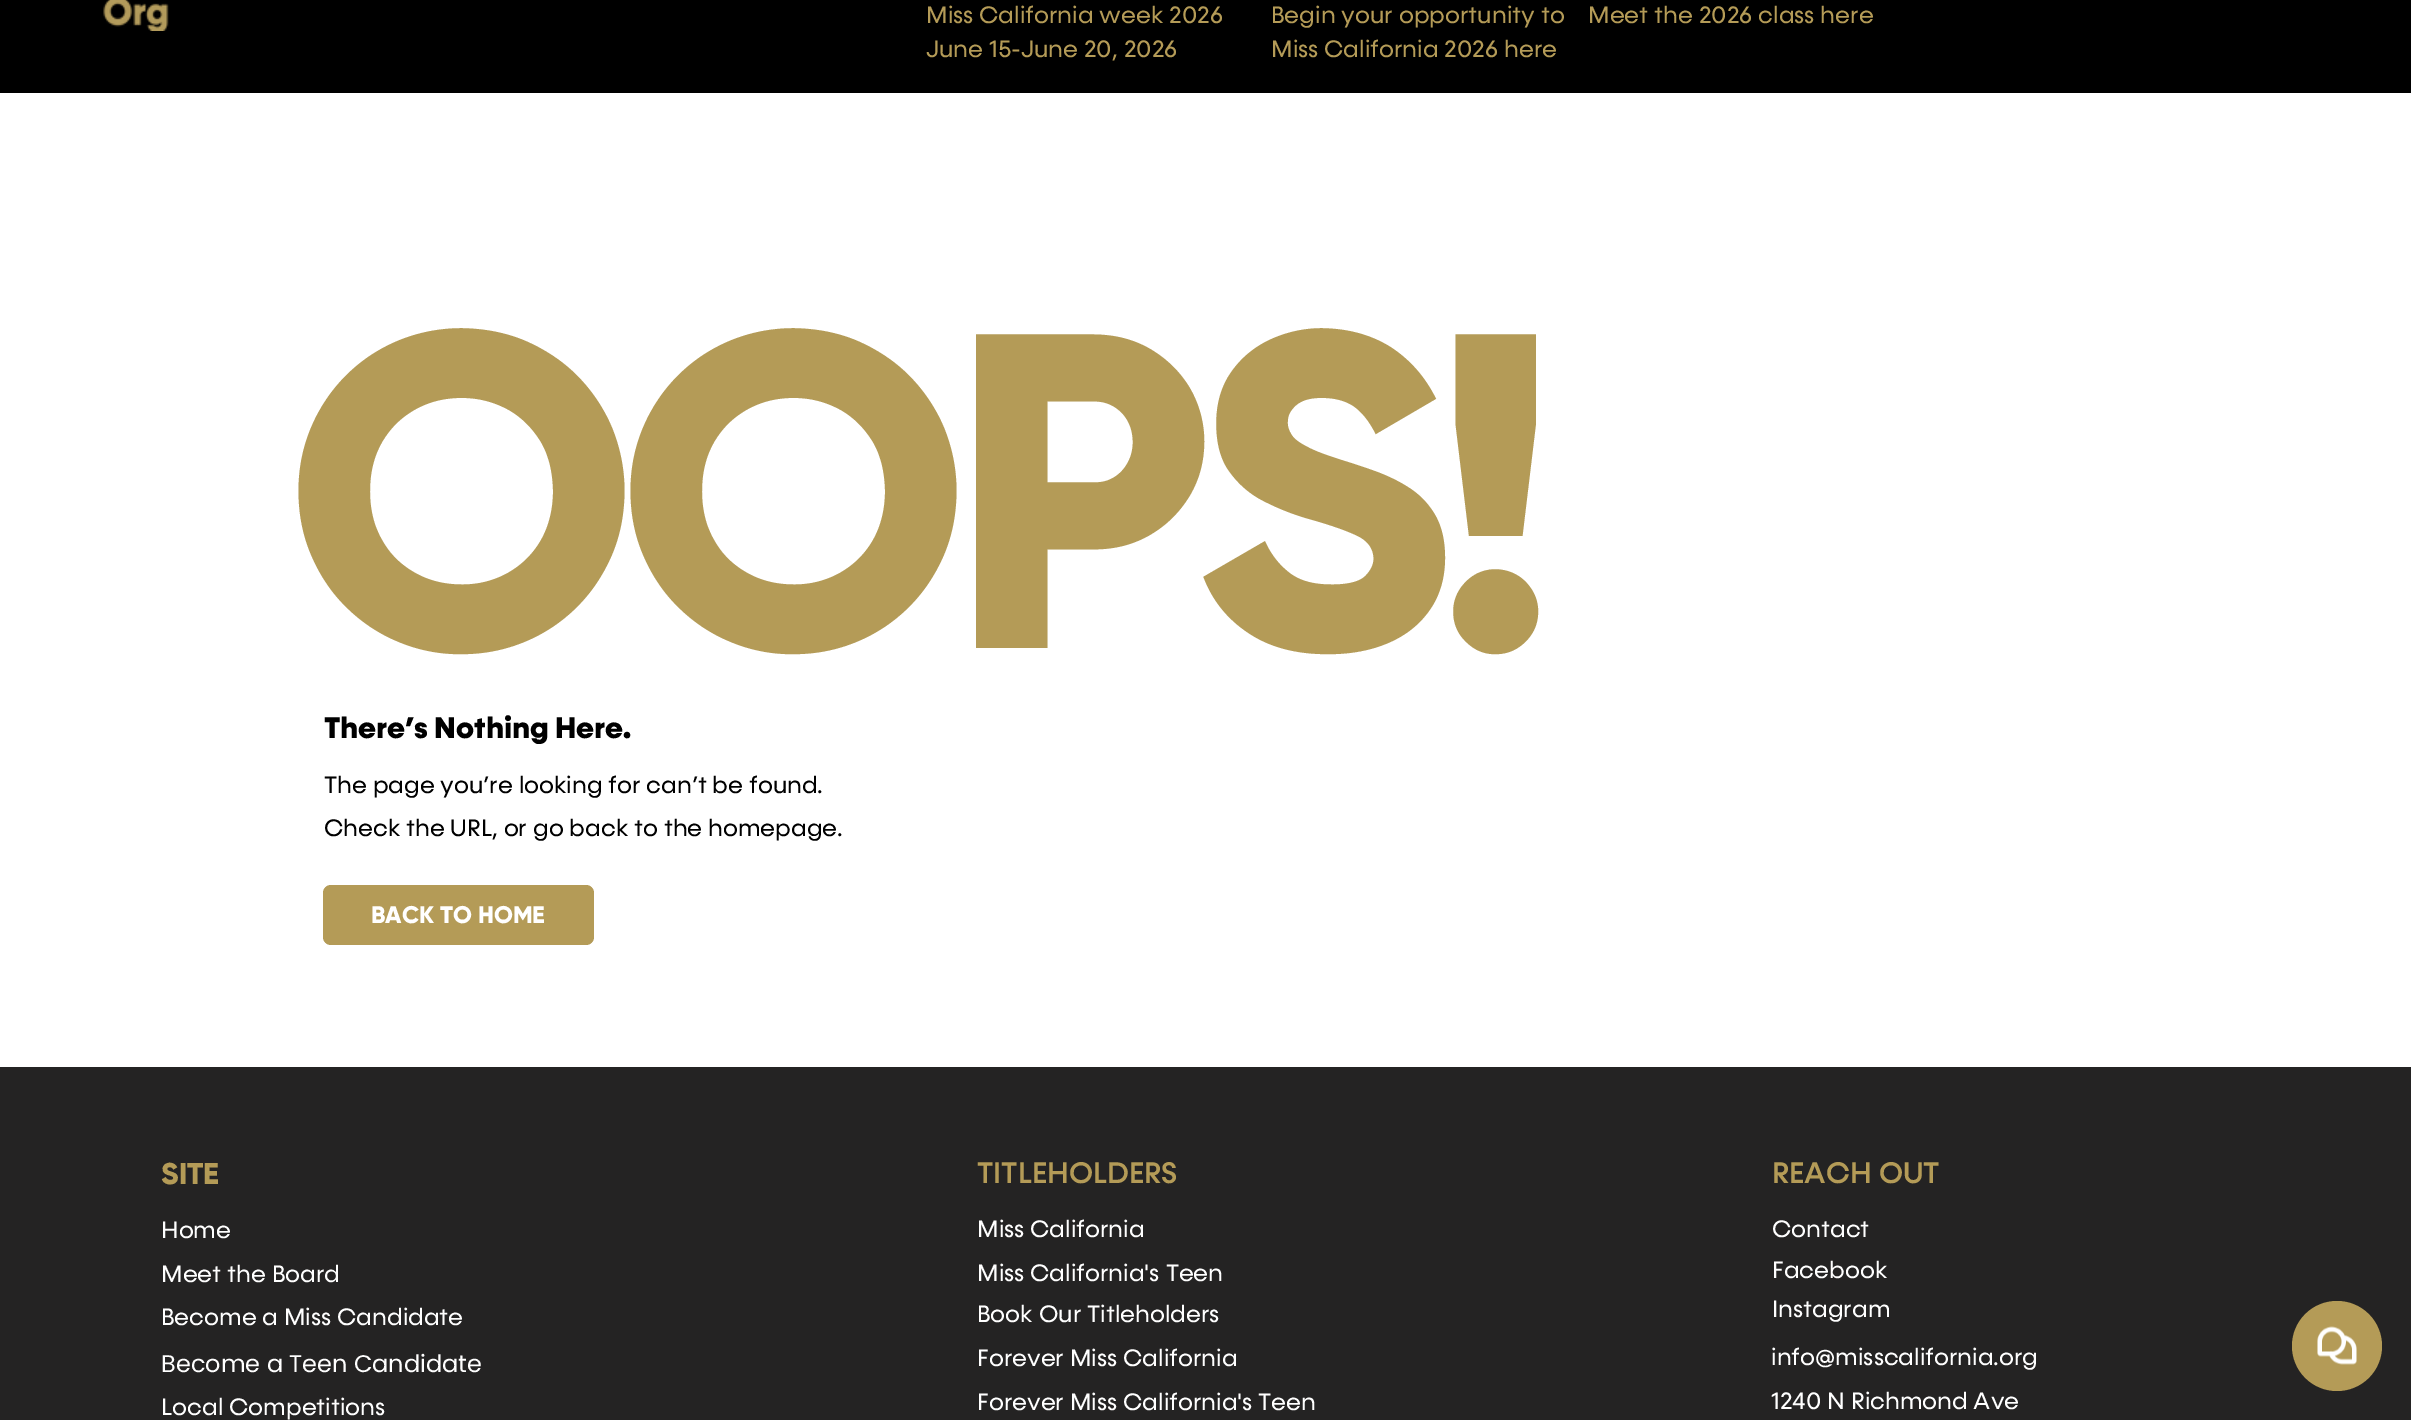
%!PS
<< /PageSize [2411 1420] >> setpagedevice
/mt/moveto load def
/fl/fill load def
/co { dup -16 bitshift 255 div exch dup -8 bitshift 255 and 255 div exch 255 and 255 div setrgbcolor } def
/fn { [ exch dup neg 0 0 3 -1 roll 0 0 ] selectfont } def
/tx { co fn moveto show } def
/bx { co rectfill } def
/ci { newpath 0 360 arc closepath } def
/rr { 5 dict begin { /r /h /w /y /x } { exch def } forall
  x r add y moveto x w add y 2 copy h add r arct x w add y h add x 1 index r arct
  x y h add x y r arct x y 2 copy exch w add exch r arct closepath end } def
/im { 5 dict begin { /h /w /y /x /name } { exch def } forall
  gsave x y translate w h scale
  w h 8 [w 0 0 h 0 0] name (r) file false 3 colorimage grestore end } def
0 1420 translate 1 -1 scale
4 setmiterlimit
0 0 2411 1420 16#FFFFFF bx
0 0 2411 93 16#000000 bx
(media/1.raw) 103 0 66 31 im
16#B49B57 co
323 885 271 60 8 rr fl
0 1067 2411 353 16#242323 bx
16#B49B57 co
2337 1346 45 ci fl
(media/2.raw) 2317 1326 40 39 im
(Miss California week 2026) 926 23 /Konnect-Regular 24 16#B49B57 tx
(June 15-June 20, 2026) 926 57 /Konnect-Regular 24 16#B49B57 tx
(Begin your opportunity to) 1271 23 /Konnect-Regular 24 16#B49B57 tx
(Miss California 2026 here) 1271 57 /Konnect-Regular 24 16#B49B57 tx
(Meet the 2026 class here) 1588 23 /Konnect-Regular 24 16#B49B57 tx
/Gilroy-ExtraBold 450 fn
285 648 mt -22.5 0 (OOPS!) ashow
(There’s Nothing Here.) 324 738 /Konnect-ExtraBold 30 16#000000 tx
(The page you’re looking for can’t be found.) 324 793 /Konnect-Regular 24 16#000000 tx
(Check the URL, or go back to the homepage.) 324 836 /Konnect-Regular 24 16#000000 tx
(BACK TO HOME) 371 923 /Gilroy-ExtraBold 24 16#FFFFFF tx
(SITE) 161 1184 /Gilroy-ExtraBold 30 16#B49B57 tx
(Home) 161 1238 /Konnect-Regular 24 16#FFFFFF tx
(Meet the Board) 161 1282 /Konnect-Regular 24 16#FFFFFF tx
(Become a Miss Candidate) 161 1325 /Konnect-Regular 24 16#FFFFFF tx
(Become a Teen Candidate) 161 1372 /Poppins-Regular 24 16#FFFFFF tx
(Local Competitions) 161 1415 /Konnect-Regular 24 16#FFFFFF tx
(TITLEHOLDERS) 977 1183 /Konnect-Medium 30 16#B49B57 tx
(Miss California) 977 1237 /Konnect-Regular 24 16#FFFFFF tx
(Miss California's Teen) 977 1281 /Konnect-Regular 24 16#FFFFFF tx
(Book Our Titleholders) 977 1322 /Konnect-Regular 24 16#FFFFFF tx
(Forever Miss California) 977 1366 /Konnect-Regular 24 16#FFFFFF tx
(Forever Miss California's Teen) 977 1410 /Konnect-Regular 24 16#FFFFFF tx
(REACH OUT) 1772 1183 /Konnect-Medium 30 16#B49B57 tx
(Contact) 1772 1237 /Konnect-Regular 24 16#FFFFFF tx
(Facebook) 1772 1278 /Konnect-Regular 24 16#FFFFFF tx
(Instagram) 1772 1317 /Konnect-Regular 24 16#FFFFFF tx
(info@misscalifornia.org) 1771 1365 /Konnect-Regular 24 16#FFFFFF tx
(1240 N Richmond Ave) 1771 1409 /Konnect-Regular 24 16#FFFFFF tx
showpage
